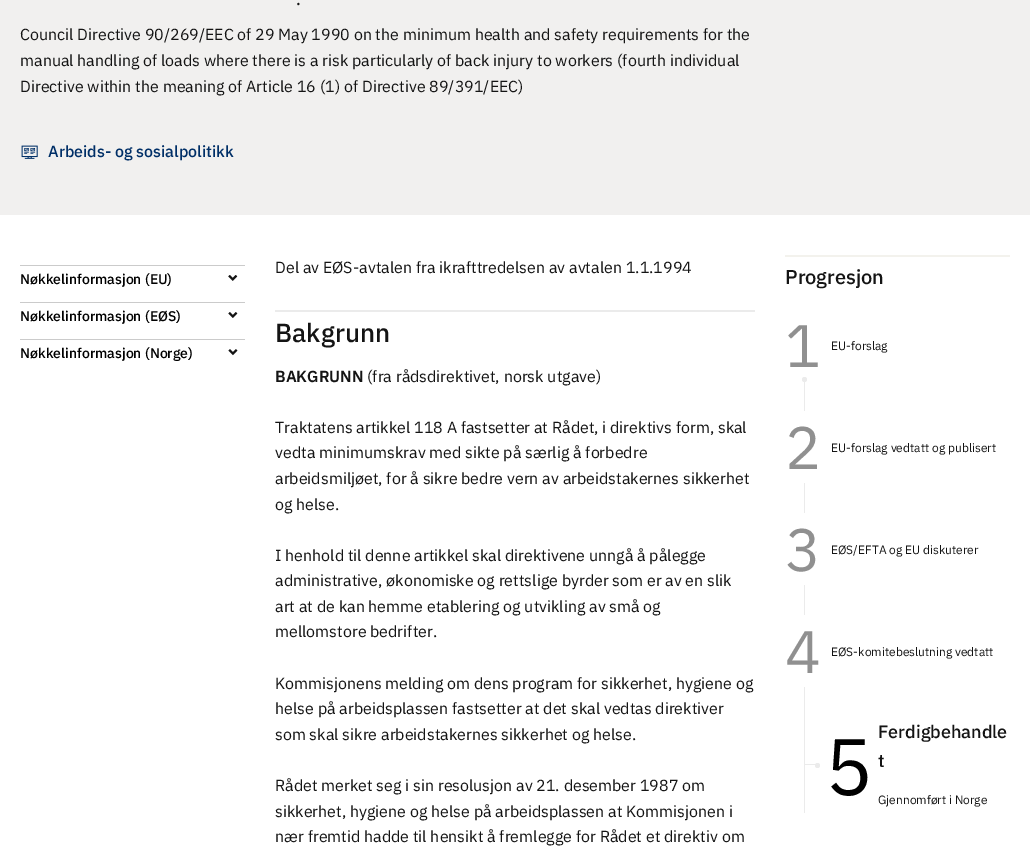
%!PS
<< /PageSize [1030 859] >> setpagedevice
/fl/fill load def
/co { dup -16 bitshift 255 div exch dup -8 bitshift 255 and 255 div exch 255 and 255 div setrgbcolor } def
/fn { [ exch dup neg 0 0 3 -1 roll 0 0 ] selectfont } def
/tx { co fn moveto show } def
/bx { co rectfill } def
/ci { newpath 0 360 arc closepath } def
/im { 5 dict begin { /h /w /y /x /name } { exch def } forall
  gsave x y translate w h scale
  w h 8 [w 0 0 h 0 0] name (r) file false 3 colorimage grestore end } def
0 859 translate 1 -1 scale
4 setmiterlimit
0 0 1030 859 16#FFFFFF bx
0 0 1030 215 16#F1F0EF bx
(media/1.raw) 21 145 17 14 im
20 265 225 1 16#CBCBCB bx
(media/2.raw) 228 275 10 6 im
20 302 225 1 16#CBCBCB bx
(media/3.raw) 228 312 10 6 im
20 339 225 1 16#CBCBCB bx
(media/4.raw) 228 349 10 7 im
275 310 480 2 16#EBEBEB bx
785 255 225 2 16#F3F2ED bx
804 381 1 432 16#EBEBEB bx
804.5 379.5 2.5 ci fl
804 411 1 72 16#FFFFFF bx
804 513 1 72 16#FFFFFF bx
804 615 1 72 16#FFFFFF bx
16#EBEBEB co
817.5 765.5 2.5 ci fl
804 764 14 1 16#EBEBEB bx
(.) 296 5 /IBMPlexSans-Medium 16 16#141414 tx
(Council Directive 90/269/EEC of 29 May 1990 on the minimum health and safety requirements for the) 20 40 /IBMPlexSans-Regular 16 16#141414 tx
(manual handling of loads where there is a risk particularly of back injury to workers \(fourth individual) 20 66 /IBMPlexSans-Regular 16 16#141414 tx
(Directive within the meaning of Article 16 \(1\) of Directive 89/391/EEC\)) 20 92 /IBMPlexSans-Regular 16 16#141414 tx
(Arbeids- og sosialpolitikk) 48 157 /IBMPlexSans-Medium 16 16#002F67 tx
(Nøkkelinformasjon \(EU\)) 20 284 /IBMPlexSans-Medium 14 16#000000 tx
(Nøkkelinformasjon \(EØS\)) 20 321 /IBMPlexSans-Medium 14 16#000000 tx
(Nøkkelinformasjon \(Norge\)) 20 358 /IBMPlexSans-Medium 14 16#000000 tx
(Del av EØS-avtalen fra ikrafttredelsen av avtalen 1.1.1994) 275 273 /IBMPlexSans-Regular 16 16#141414 tx
(Bakgrunn) 275 342 /IBMPlexSans-Medium 26 16#141414 tx
(BAKGRUNN) 275 382 /IBMPlexSans-SemiBold 16 16#141414 tx
(\(fra rådsdirektivet, norsk utgave\)) 367 382 /IBMPlexSans-Regular 16 16#141414 tx
(Traktatens artikkel 118 A fastsetter at Rådet, i direktivs form, skal) 275 433 /IBMPlexSans-Regular 16 16#141414 tx
(vedta minimumskrav med sikte på særlig å forbedre) 275 458 /IBMPlexSans-Regular 16 16#141414 tx
(arbeidsmiljøet, for å sikre bedre vern av arbeidstakernes sikkerhet) 275 484 /IBMPlexSans-Regular 16 16#141414 tx
(og helse.) 275 510 /IBMPlexSans-Regular 16 16#141414 tx
(I henhold til denne artikkel skal direktivene unngå å pålegge) 275 561 /IBMPlexSans-Regular 16 16#141414 tx
(administrative, økonomiske og rettslige byrder som er av en slik) 275 586 /IBMPlexSans-Regular 16 16#141414 tx
(art at de kan hemme etablering og utvikling av små og) 275 612 /IBMPlexSans-Regular 16 16#141414 tx
(mellomstore bedrifter.) 275 637 /IBMPlexSans-Regular 16 16#141414 tx
(Kommisjonens melding om dens program for sikkerhet, hygiene og) 275 689 /IBMPlexSans-Regular 16 16#141414 tx
(helse på arbeidsplassen fastsetter at det skal vedtas direktiver) 275 714 /IBMPlexSans-Regular 16 16#141414 tx
(som skal sikre arbeidstakernes sikkerhet og helse.) 275 740 /IBMPlexSans-Regular 16 16#141414 tx
(Rådet merket seg i sin resolusjon av 21. desember 1987 om) 275 791 /IBMPlexSans-Regular 16 16#141414 tx
(sikkerhet, hygiene og helse på arbeidsplassen at Kommisjonen i) 275 817 /IBMPlexSans-Regular 16 16#141414 tx
(nær fremtid hadde til hensikt å fremlegge for Rådet et direktiv om) 275 842 /IBMPlexSans-Regular 16 16#141414 tx
(Progresjon) 785 284 /IBMPlexSans-Medium 20 16#141414 tx
(1) 785 367 /IBMPlexSans-Regular 60 16#909090 tx
(EU-forslag) 831 350 /IBMPlexSans-Regular 12 16#141414 tx
(2) 785 469 /IBMPlexSans-Regular 60 16#909090 tx
(EU-forslag vedtatt og publisert) 831 452 /IBMPlexSans-Regular 12 16#141414 tx
(3) 785 571 /IBMPlexSans-Regular 60 16#909090 tx
(EØS/EFTA og EU diskuterer) 831 554 /IBMPlexSans-Regular 12 16#141414 tx
(4) 785 673 /IBMPlexSans-Regular 60 16#909090 tx
(EØS-komitebeslutning vedtatt) 831 656 /IBMPlexSans-Regular 12 16#141414 tx
(5) 825 795 /IBMPlexSans-Regular 80 16#000000 tx
(Ferdigbehandle) 878 738 /IBMPlexSans-Medium 18 16#141414 tx
(t) 878 767 /IBMPlexSans-Medium 18 16#141414 tx
(Gjennomført i Norge) 878 804 /IBMPlexSans-Regular 12 16#141414 tx
showpage
